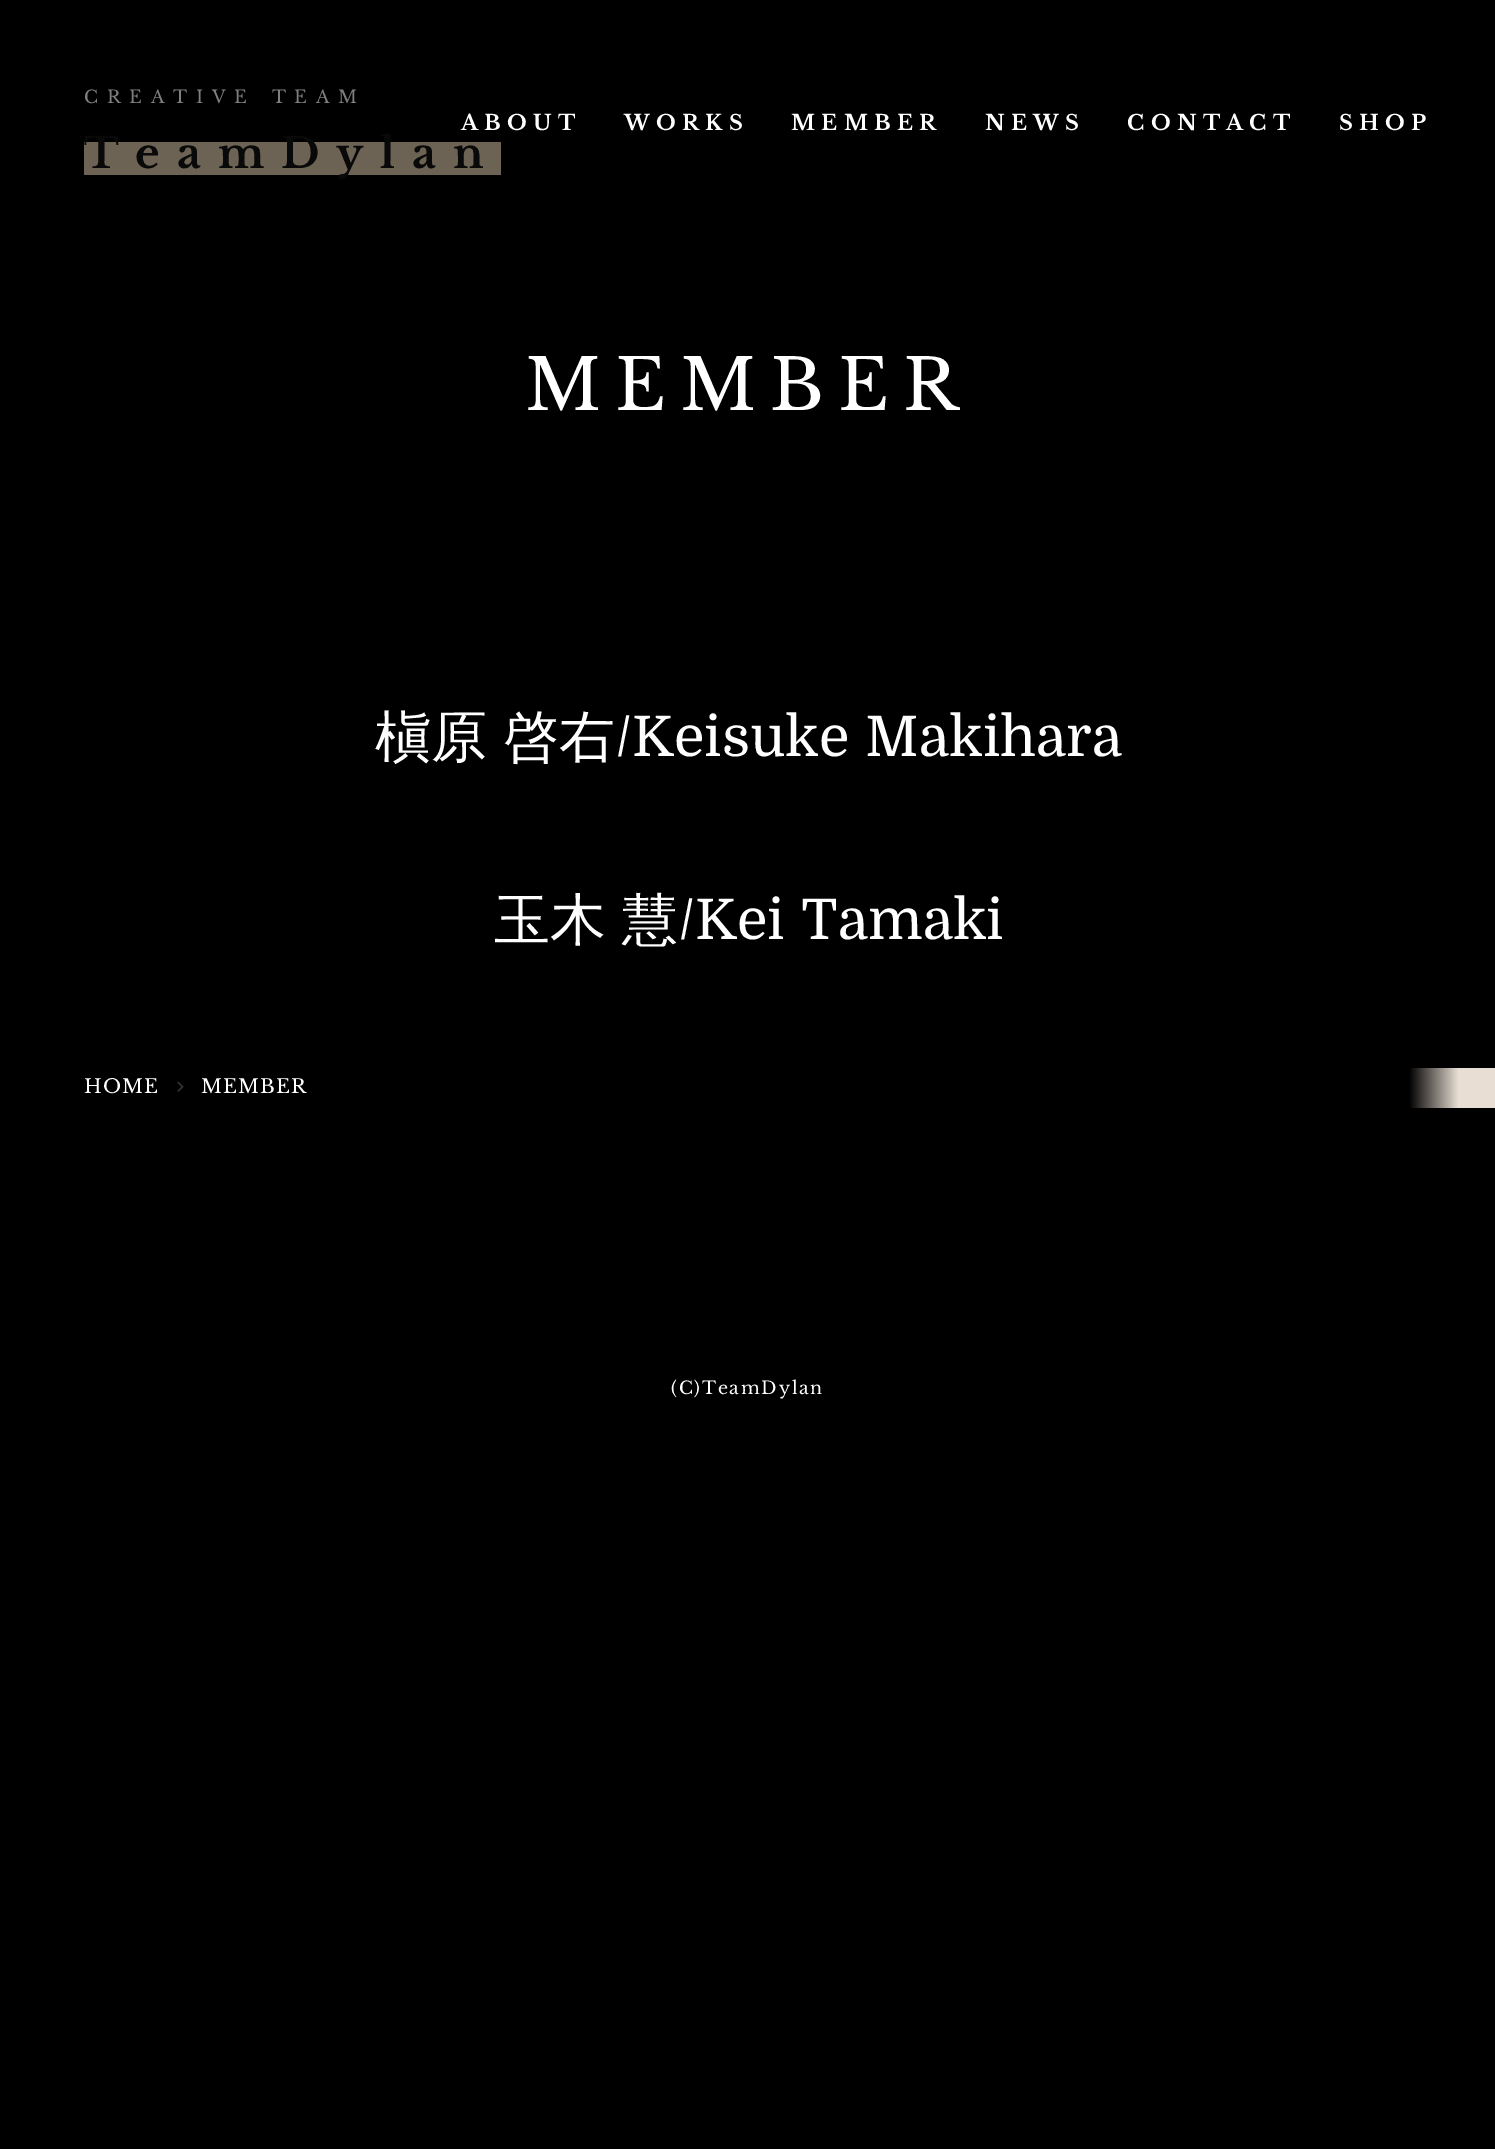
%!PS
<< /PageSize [1495 2149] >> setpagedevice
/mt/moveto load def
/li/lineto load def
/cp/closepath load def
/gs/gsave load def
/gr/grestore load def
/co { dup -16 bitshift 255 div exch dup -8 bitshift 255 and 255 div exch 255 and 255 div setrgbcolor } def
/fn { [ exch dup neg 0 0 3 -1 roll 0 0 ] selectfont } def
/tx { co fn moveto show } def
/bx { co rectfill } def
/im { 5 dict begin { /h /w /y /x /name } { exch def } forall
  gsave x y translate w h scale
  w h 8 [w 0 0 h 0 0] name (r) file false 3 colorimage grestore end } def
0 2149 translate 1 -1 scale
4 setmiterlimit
0 0 1495 2149 16#000000 bx
84 142 417 33 16#6C6354 bx
(media/1.raw) 177 1081 7 11 im
gs 1410 1068 mt 1495 1068 li 1495 1108 li 1410 1108 li cp clip newpath
<< /ShadingType 2 /ColorSpace /DeviceRGB /Coords [1409 1088 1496 1088] /Extend [true true] /Function << /FunctionType 3 /Domain [0 1] /Functions [<< /FunctionType 2 /Domain [0 1] /C0 [0 0 0] /C1 [.91 .871 .831] /N 1 >> << /FunctionType 2 /Domain [0 1] /C0 [.91 .871 .831] /C1 [.91 .871 .831] /N 1 >>] /Bounds [.57] /Encode [0 1 0 1] >> >> shfill gr
/LibreBaskerville-Regular 17.5 fn
16#808080 co
84 103 mt 2 0 32 8.75 0 (CREATIVE TEAM) awidthshow
/LibreBaskerville-Bold 42 fn
16#090909 co
84 168 mt 16.75 0 (TeamDylan) ashow
/LibreBaskerville-Bold 21 fn
16#FFFFFF co
461 130 mt 6.25 0 (ABOUT) ashow
624 130 mt 6.25 0 (WORKS) ashow
791 130 mt 6.25 0 (MEMBER) ashow
985 130 mt 6.25 0 (NEWS) ashow
1127 130 mt 6.25 0 (CONTACT) ashow
1339 130 mt 6.25 0 (SHOP) ashow
/LibreBaskerville-Regular 70 fn
525 410 mt 14 0 (MEMBER) ashow
(槇原) 375 756 /WenQuanYiZenHei-Medium 56 16#FFFFFF tx
(啓右) 503 756 /WenQuanYiZenHei-Medium 56 16#FFFFFF tx
/Domine-Regular 56 fn
615 756 mt 2 0 32 (/Keisuke Makihara) widthshow
(玉木) 494 939 /WenQuanYiZenHei-Medium 56 16#FFFFFF tx
(慧) 622 939 /WenQuanYiZenHei-Medium 56 16#FFFFFF tx
/Domine-Regular 56 fn
678 939 mt 2 0 32 (/Kei Tamaki) widthshow
/LibreBaskerville-Regular 19.25 fn
84 1093 mt 1 0 (HOME) ashow
201 1093 mt 1 0 (MEMBER) ashow
/LibreBaskerville-Regular 17.5 fn
671 1394 mt 1.75 0 (\(C\)TeamDylan) ashow
showpage
